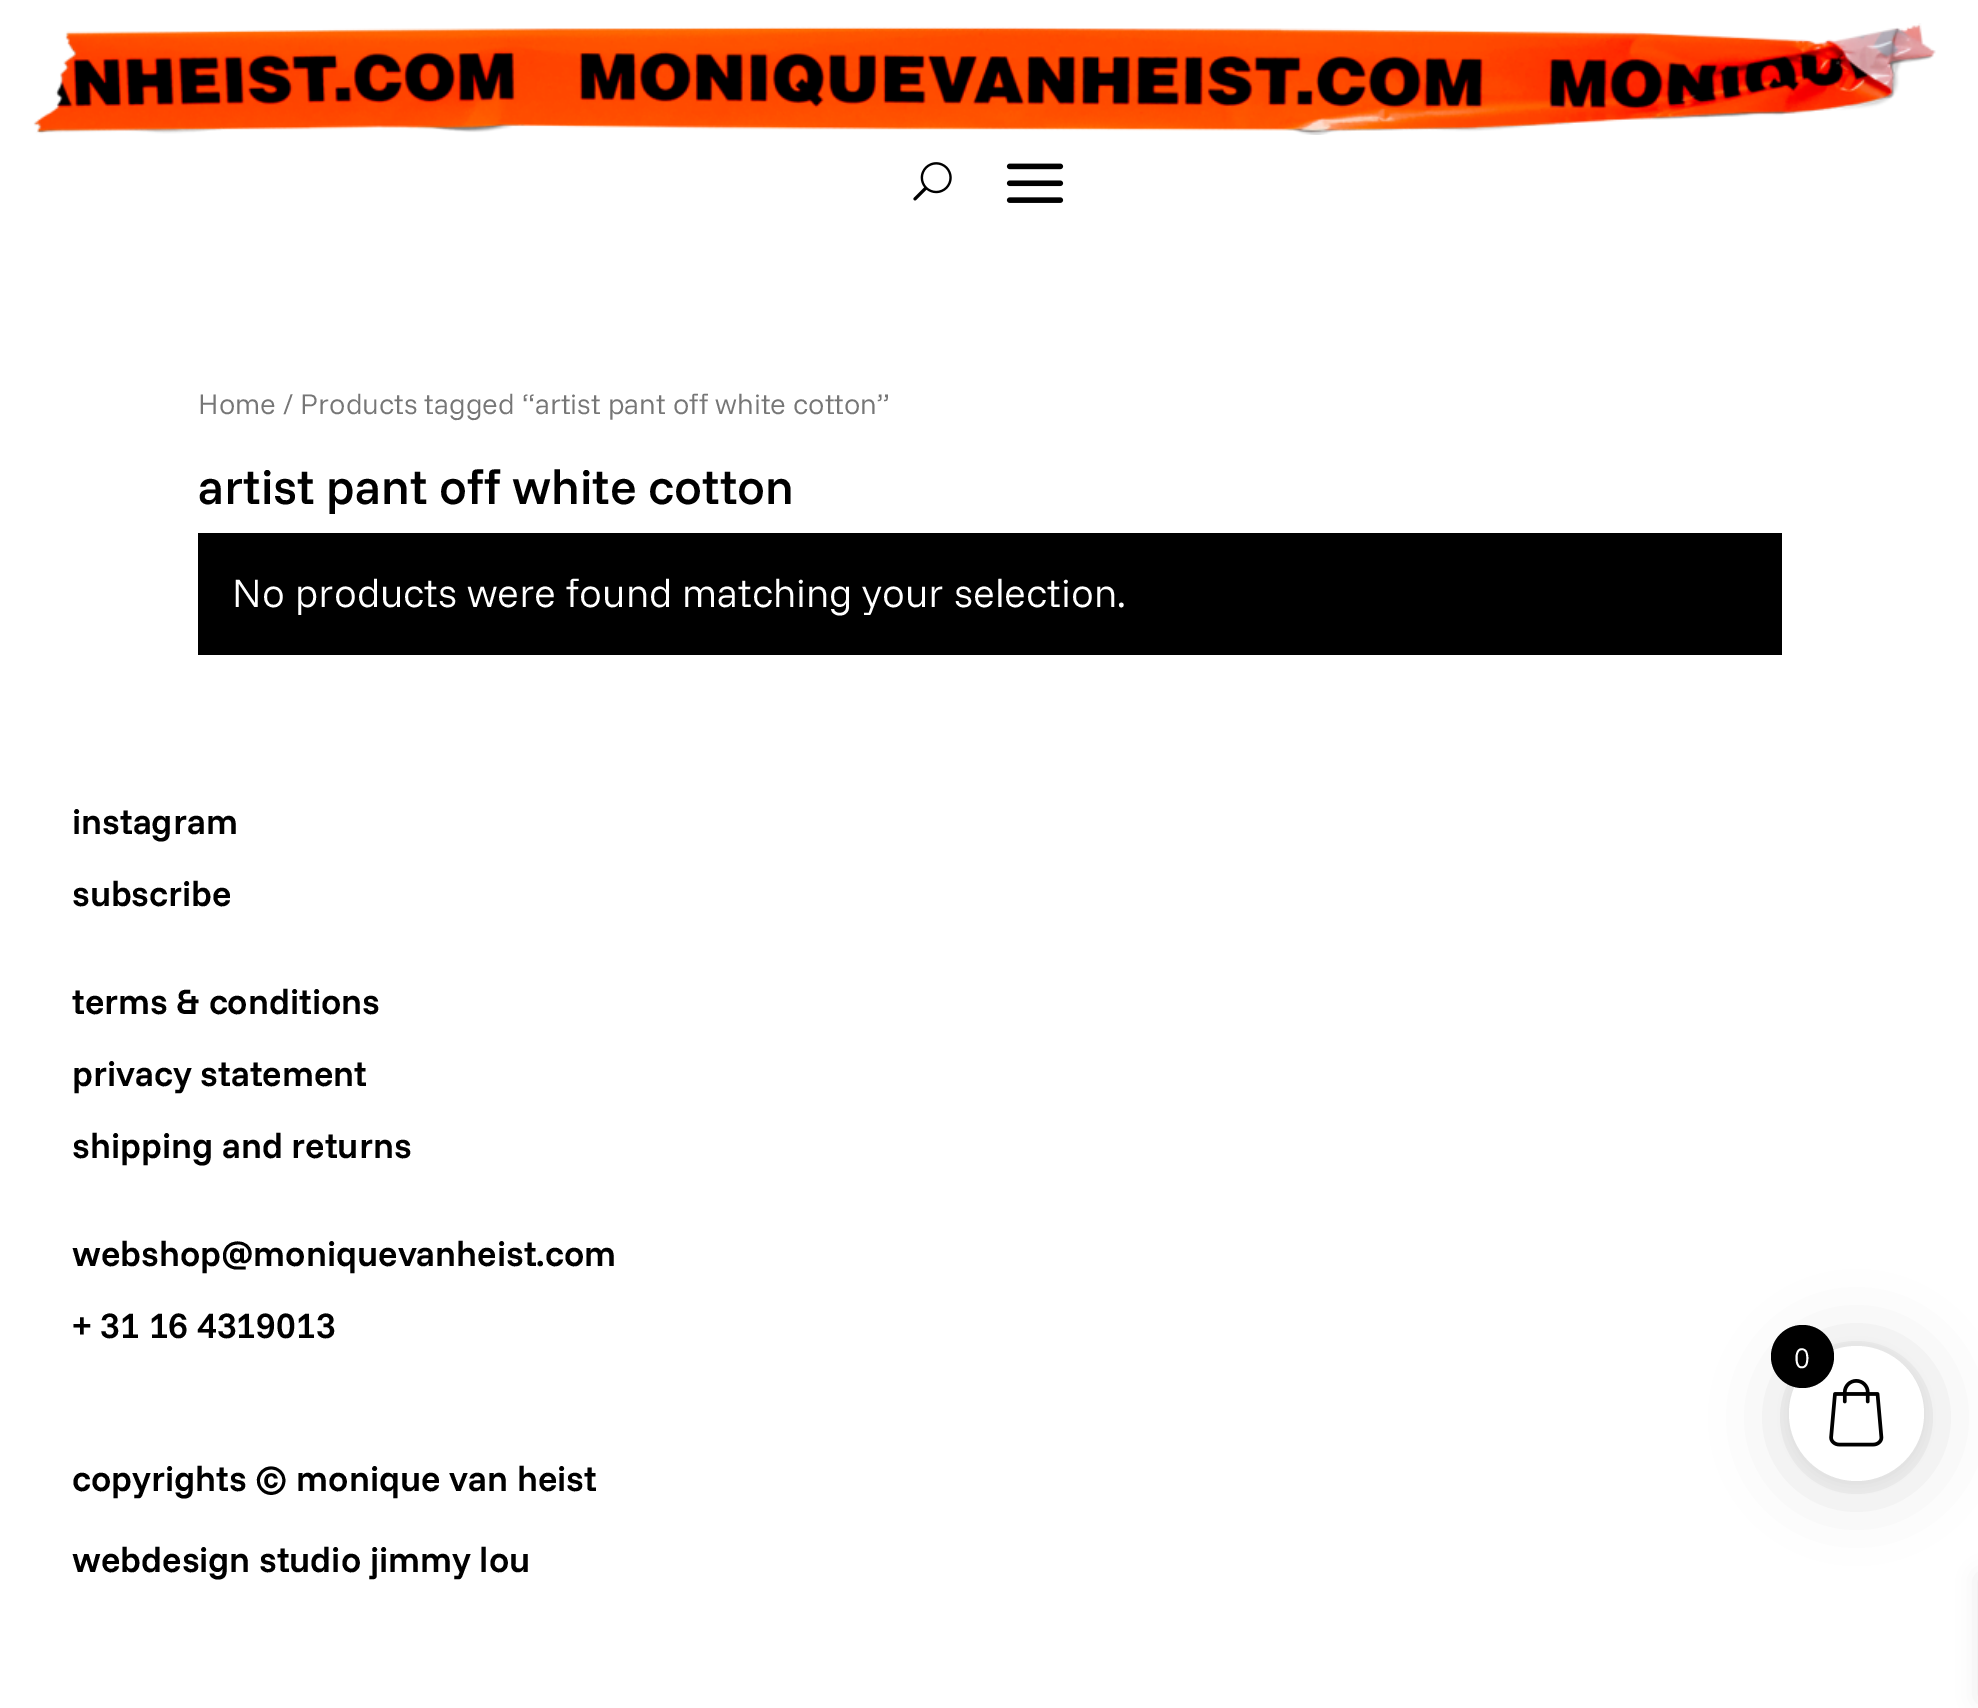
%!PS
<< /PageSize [1978 1708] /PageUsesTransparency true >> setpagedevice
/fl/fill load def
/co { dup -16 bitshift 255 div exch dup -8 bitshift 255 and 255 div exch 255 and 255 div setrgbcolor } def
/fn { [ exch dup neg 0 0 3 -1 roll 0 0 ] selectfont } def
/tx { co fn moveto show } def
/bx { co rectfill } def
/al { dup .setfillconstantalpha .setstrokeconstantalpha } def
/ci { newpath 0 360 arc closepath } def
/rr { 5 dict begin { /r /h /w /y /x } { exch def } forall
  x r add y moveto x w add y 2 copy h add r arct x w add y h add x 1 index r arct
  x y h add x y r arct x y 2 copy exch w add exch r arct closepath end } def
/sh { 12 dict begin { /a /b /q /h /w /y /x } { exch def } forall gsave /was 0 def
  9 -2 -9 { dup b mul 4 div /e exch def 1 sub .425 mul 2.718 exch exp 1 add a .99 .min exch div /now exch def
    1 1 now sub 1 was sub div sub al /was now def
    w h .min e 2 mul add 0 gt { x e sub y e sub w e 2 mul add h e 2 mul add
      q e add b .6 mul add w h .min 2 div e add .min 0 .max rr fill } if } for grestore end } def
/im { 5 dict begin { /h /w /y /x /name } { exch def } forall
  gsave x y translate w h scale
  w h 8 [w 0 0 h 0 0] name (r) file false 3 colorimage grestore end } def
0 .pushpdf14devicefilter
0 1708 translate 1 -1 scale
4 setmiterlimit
0 0 1978 1708 16#FFFFFF bx
(media/1.raw) 33 23 1903 112 im
(media/2.raw) 913 162 39 39 im
(media/3.raw) 1006 163 58 40 im
198 533 1584 122 16#000000 bx
1789 1350 135 135 67.5 36 .16 sh
1789 1348 135 135 67.5 7 .06 sh
16#FFFFFF co
1856.5 1413.5 67.5 ci fl
(media/4.raw) 1829 1379 55 68 im
16#000000 co
1802.5 1356.5 31.5 ci fl
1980 1577 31 122 0 11 .1 sh
(Home / Products tagged “artist pant off white cotton”) 198 414 /FunnelSans-Light 29 16#767676 tx
(artist pant off white cotton) 198 504 /FunnelSans-Medium 49.5 16#000000 tx
(No products were found matching your selection.) 232 607 /FunnelSans-Light 40.5 16#FFFFFF tx
(instagram) 72 834 /FunnelSans-SemiBold 36 16#000000 tx
(subscribe) 72 906 /FunnelSans-SemiBold 36 16#000000 tx
(terms & conditions) 72 1014 /FunnelSans-SemiBold 36 16#000000 tx
(privacy statement) 72 1086 /FunnelSans-SemiBold 36 16#000000 tx
(shipping and returns) 72 1158 /FunnelSans-SemiBold 36 16#000000 tx
(webshop@moniquevanheist.com) 72 1266 /FunnelSans-SemiBold 36 16#000000 tx
(+ 31 16 4319013) 72 1338 /FunnelSans-SemiBold 36 16#000000 tx
(copyrights © monique van heist) 72 1491 /FunnelSans-SemiBold 36 16#000000 tx
(webdesign studio jimmy lou) 72 1572 /FunnelSans-SemiBold 36 16#000000 tx
(0) 1794 1368 /FunnelSans-Light 29 16#FFFFFF tx
.poppdf14devicefilter showpage
